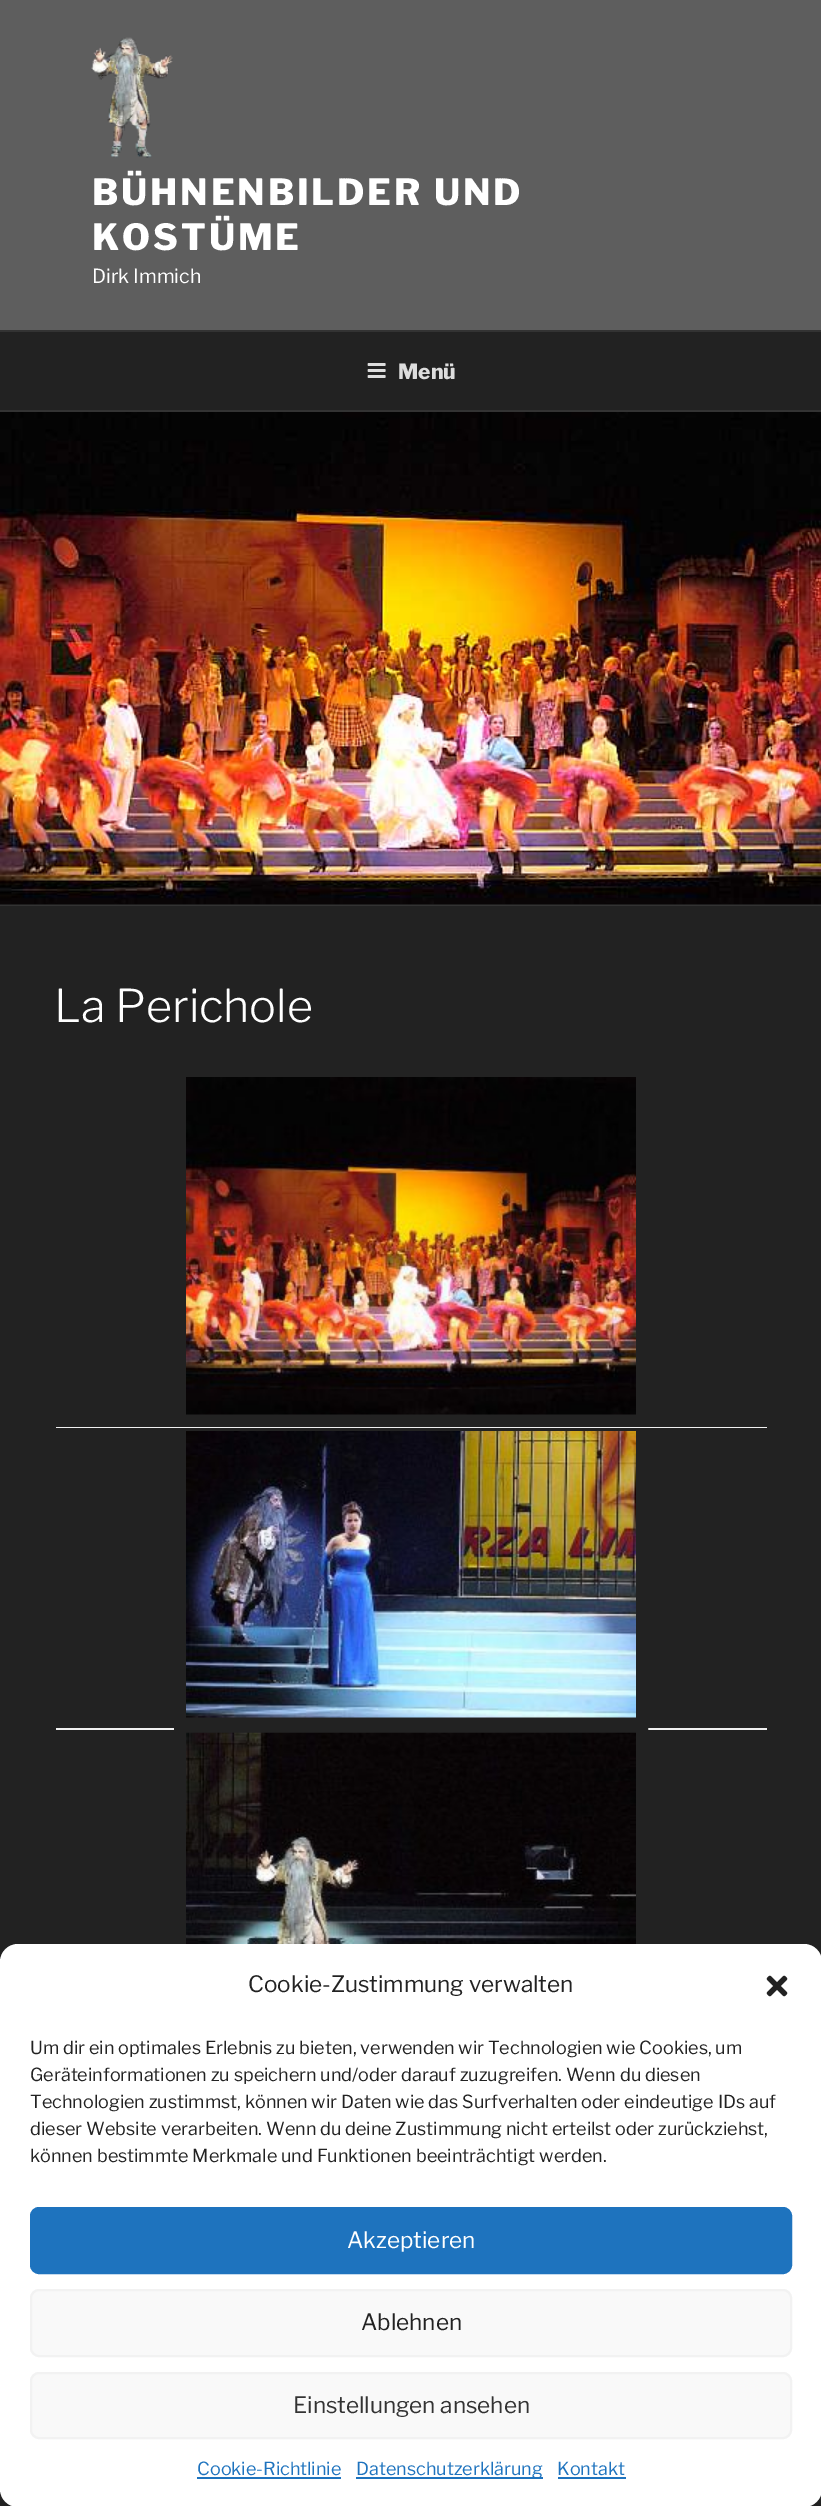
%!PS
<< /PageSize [821 2506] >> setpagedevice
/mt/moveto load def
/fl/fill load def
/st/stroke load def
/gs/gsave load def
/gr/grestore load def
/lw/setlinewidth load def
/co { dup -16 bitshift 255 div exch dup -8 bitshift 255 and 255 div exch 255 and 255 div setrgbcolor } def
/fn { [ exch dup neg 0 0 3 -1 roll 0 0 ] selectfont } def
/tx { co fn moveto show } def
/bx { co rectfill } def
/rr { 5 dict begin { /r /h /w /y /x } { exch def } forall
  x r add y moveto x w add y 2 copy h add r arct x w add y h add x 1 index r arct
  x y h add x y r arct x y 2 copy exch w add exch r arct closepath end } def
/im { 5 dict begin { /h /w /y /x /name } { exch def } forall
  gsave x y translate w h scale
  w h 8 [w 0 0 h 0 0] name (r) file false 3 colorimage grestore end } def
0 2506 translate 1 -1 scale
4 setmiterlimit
0 0 821 2506 16#262626 bx
0 0 821 330 16#5E5E5E bx
(media/1.raw) 91 37 82 121 im
0 332 821 78 16#222222 bx
0 330 821 2 16#333333 bx
0 410 821 2 16#333333 bx
(media/2.raw) 367 363 19 15 im
0 905 821 1 16#333333 bx
(media/3.raw) 0 412 821 493 im
0 906 821 1600 16#222222 bx
56 1427 711 1 16#F0F0F0 bx
(media/4.raw) 186 1077 450 338 im
56 1728 711 2 16#F0F0F0 bx
gs
56 1431 711 299 rectclip
16#222222 co
12 lw
180 1425 462 299 rectstroke
gr
(media/5.raw) 186 1431 450 287 im
(media/6.raw) 186 1732 450 212 im
16#FFFFFF co
0 1944 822 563 18 rr fl
(media/7.raw) 766 1975 22 22 im
16#1E73BE co
31 2208 760 65 8 rr gs fl gr
2 lw
st
16#F9F9F9 co
31 2290 760 66 8 rr gs fl gr
16#F2F2F2 co
st
16#F9F9F9 co
31 2373 760 65 8 rr gs fl gr
16#F2F2F2 co
st
197 2477 144 2 16#1E73BE bx
356 2477 187 2 16#1E73BE bx
558 2477 68 2 16#1E73BE bx
/LibreFranklin-Thin 36 fn
16#FFFFFF co
92 205 mt 2.9 0 (BÜHNENBILDER UND) ashow
92 250 mt 2.9 0 (KOSTÜME) ashow
(Dirk Immich) 92 283 /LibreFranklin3-Thin 19.5 16#FFFFFF tx
(Menü) 398 379 /LibreFranklin-Thin 21 16#DDDDDD tx
(La Perichole) 54 1022 /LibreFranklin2-Thin 45 16#FFFFFF tx
(Cookie-Zustimmung verwalten) 248 1992 /LibreFranklin3-Thin 22.5 16#222222 tx
(Um dir ein optimales Erlebnis zu bieten, verwenden wir Technologien wie Cookies, um) 30 2054 /LibreFranklin3-Thin 18 16#222222 tx
(Geräteinformationen zu speichern und/oder darauf zuzugreifen. Wenn du diesen) 30 2081 /LibreFranklin3-Thin 18 16#222222 tx
(Technologien zustimmst, können wir Daten wie das Surfverhalten oder eindeutige IDs auf) 30 2108 /LibreFranklin3-Thin 18 16#222222 tx
(dieser Website verarbeiten. Wenn du deine Zustimmung nicht erteilst oder zurückziehst,) 30 2135 /LibreFranklin3-Thin 18 16#222222 tx
(können bestimmte Merkmale und Funktionen beeinträchtigt werden.) 30 2162 /LibreFranklin3-Thin 18 16#222222 tx
(Akzeptieren) 347 2248 /LibreFranklin3-Thin 22.5 16#FFFFFF tx
(Ablehnen) 361 2330 /LibreFranklin3-Thin 22.5 16#222222 tx
(Einstellungen ansehen) 293 2413 /LibreFranklin3-Thin 22.5 16#333333 tx
(Cookie-Richtlinie) 197 2475 /LibreFranklin3-Thin 18 16#1E73BE tx
(Datenschutzerklärung) 356 2475 /LibreFranklin3-Thin 18 16#1E73BE tx
(Kontakt) 557 2475 /LibreFranklin3-Thin 18 16#1E73BE tx
showpage
